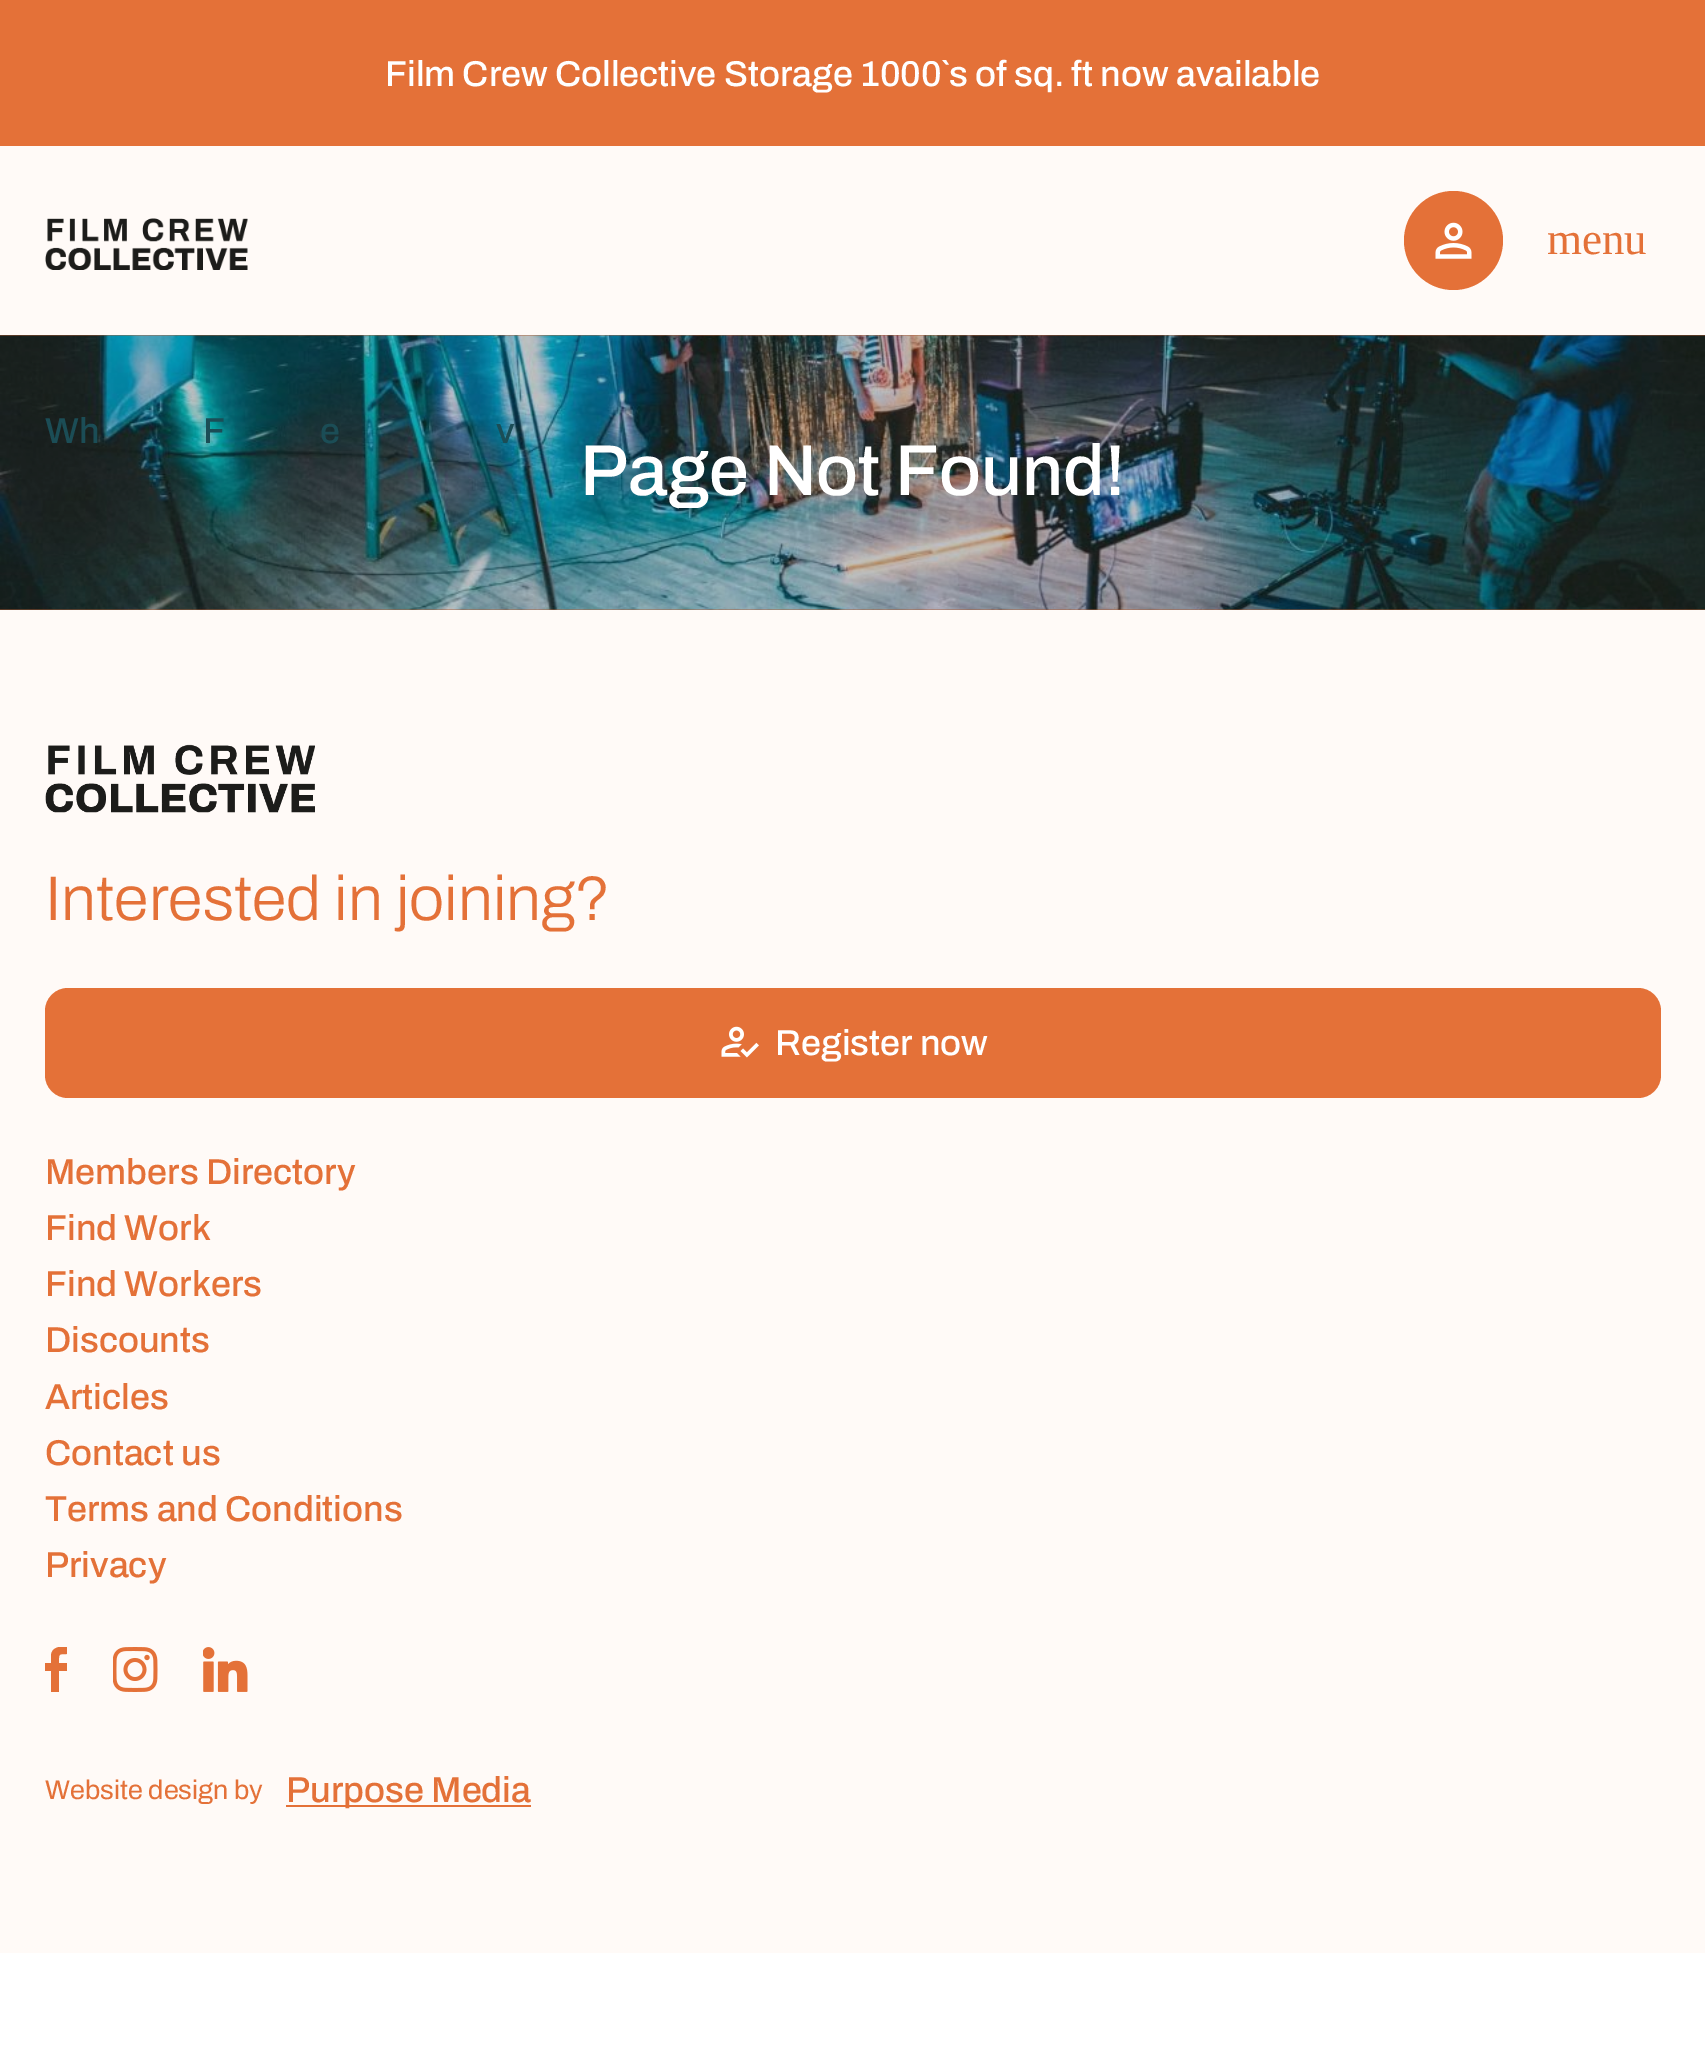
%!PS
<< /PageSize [1705 2052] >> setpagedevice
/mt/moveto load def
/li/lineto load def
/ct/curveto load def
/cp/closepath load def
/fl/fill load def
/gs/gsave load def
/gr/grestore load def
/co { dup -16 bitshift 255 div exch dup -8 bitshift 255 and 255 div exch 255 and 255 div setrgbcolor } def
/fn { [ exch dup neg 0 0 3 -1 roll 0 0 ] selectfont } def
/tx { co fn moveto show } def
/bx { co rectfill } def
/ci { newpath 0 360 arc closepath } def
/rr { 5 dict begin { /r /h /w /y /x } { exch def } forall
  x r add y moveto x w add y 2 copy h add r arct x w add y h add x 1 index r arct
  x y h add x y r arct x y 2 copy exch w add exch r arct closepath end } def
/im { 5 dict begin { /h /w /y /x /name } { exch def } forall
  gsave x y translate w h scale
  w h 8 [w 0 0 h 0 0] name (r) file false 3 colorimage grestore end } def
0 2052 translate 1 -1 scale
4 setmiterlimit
0 0 1705 2052 16#FFFFFF bx
0 146 1705 189 16#FFFAF7 bx
0 0 1705 146 16#E47138 bx
(media/1.raw) 45 218 203 52 im
1453.5 240.5 49.5 ci fl
(media/2.raw) 1435 222 37 37 im
0 335 1705 275 16#AE5D34 bx
(media/3.raw) 0 335 1705 275 im
0 610 1705 1343 16#FFFAF7 bx
(media/4.raw) 45 744 270 69 im
16#E47138 co
45 988 1616 110 23 rr fl
(media/5.raw) 721 1026 38 32 im
gs
45 1647 23 45 rectclip
51 1692 mt 51 1671 li 45 1671 li 45 1663 li 51 1663 li 51 1655 li 52 1647 60 1646 67 1647 ct 67 1654 li 58 1654 59 1654 59 1663 ct 67 1663 li 67 1671 li 59 1671 li 59 1692 li cp fl
gr
(media/6.raw) 113 1647 45 45 im
(media/7.raw) 203 1647 45 45 im
286 1805 245 2 16#E47138 bx
(Film Crew Collective Storage 1000`s of sq. ft now available) 385 86 /Archivo-Medium 36 16#FFFFFF tx
(menu) 1547 254 /LiberationSerif-Regular 45 16#E47138 tx
(Wh) 45 443 /Archivo-Medium 36 16#1B4D56 tx
(F) 203 443 /Archivo-Medium 36 16#1B4D56 tx
(e) 320 443 /Archivo-Medium 36 16#1B4D56 tx
(v) 496 443 /Archivo-Medium 36 16#1B4D56 tx
(Page Not Found!) 580 495 /Archivo-Medium 72 16#FFFFFF tx
(Interested in joining?) 45 920 /Archivo-Light 63 16#E47138 tx
(Register now) 775 1055 /Archivo-Medium 36 16#FFFFFF tx
(Members Directory) 45 1184 /Archivo-Medium 36 16#E47138 tx
(Find Work) 45 1240 /Archivo-Medium 36 16#E47138 tx
(Find Workers) 45 1296 /Archivo-Medium 36 16#E47138 tx
(Discounts) 45 1352 /Archivo-Medium 36 16#E47138 tx
(Articles) 45 1409 /Archivo-Medium 36 16#E47138 tx
(Contact us) 45 1465 /Archivo-Medium 36 16#E47138 tx
(Terms and Conditions) 45 1521 /Archivo-Medium 36 16#E47138 tx
(Privacy) 45 1577 /Archivo-Medium 36 16#E47138 tx
(Website design by) 45 1799 /Archivo-Regular 27 16#E47138 tx
(Purpose Media) 286 1802 /Archivo-Medium 36 16#E47138 tx
showpage
